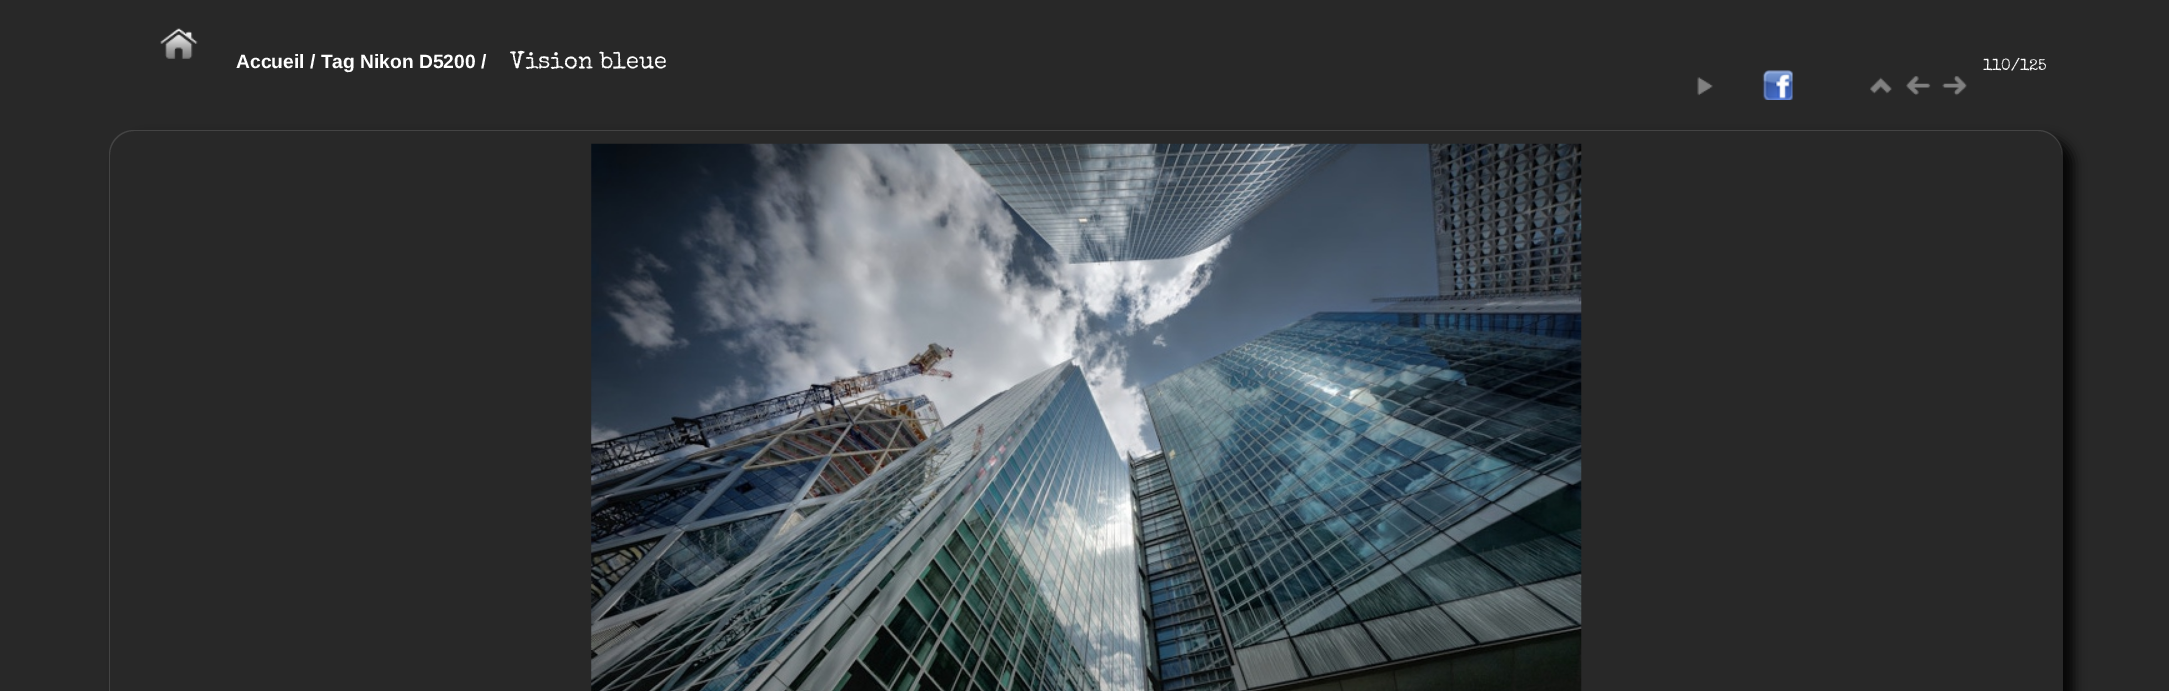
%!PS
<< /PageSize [2169 691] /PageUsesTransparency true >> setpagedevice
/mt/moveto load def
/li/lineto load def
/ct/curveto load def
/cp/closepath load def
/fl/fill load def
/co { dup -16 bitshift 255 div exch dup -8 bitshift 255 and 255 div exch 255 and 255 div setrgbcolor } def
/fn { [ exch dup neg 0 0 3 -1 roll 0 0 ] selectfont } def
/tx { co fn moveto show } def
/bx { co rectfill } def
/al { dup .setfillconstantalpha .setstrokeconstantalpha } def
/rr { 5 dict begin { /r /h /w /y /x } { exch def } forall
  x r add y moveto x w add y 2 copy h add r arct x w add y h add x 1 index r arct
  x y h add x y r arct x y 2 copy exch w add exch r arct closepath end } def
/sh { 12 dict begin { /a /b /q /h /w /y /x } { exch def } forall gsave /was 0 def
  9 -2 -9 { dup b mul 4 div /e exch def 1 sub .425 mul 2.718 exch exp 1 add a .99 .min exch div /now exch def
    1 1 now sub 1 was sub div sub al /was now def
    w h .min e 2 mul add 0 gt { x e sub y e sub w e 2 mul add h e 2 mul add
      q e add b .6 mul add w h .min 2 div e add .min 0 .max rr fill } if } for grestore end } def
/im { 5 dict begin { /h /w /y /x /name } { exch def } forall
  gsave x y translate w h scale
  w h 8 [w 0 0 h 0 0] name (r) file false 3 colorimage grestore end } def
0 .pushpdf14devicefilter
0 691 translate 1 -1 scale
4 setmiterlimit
0 0 2169 691 16#282828 bx
(media/1.raw) 160 28 38 31 im
(media/2.raw) 1697 77 16 19 im
(media/3.raw) 1762 70 31 30 im
(media/4.raw) 1870 77 22 17 im
(media/5.raw) 1906 76 25 19 im
(media/6.raw) 1942 76 25 20 im
16#050505 co
120 138 1954 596 25 6 1 sh
16#282828 co
109 130 1954 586 25 rr fl
16#444444 co
134 130 mt 2038 130 li 2051 130 2062 141 2062 155 ct 2062 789 li 2062 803 2051 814 2038 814 ct 134 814 li 120 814 109 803 109 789 ct 109 155 li 109 141 120 130 134 130 ct cp 134 131 mt 2038 131 li 2051 131 2062 142 2062 155 ct 2062 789 li 2062 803 2051 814 2038 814 ct 134 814 li 121 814 110 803 110 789 ct 110 155 li 110 142 121 131 134 131 ct cp eofill
(media/7.raw) 591 143 991 548 im
(Accueil / Tag Nikon D5200 /) 236 68 /LiberationSans-Bold 19.25 16#FFFFFF tx
(Vision bleue) 510 68 /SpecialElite-Regular 23.75 16#FFFFFF tx
(110/125) 1983 70 /SpecialElite-Regular 16 16#FFFFFF tx
.poppdf14devicefilter showpage
